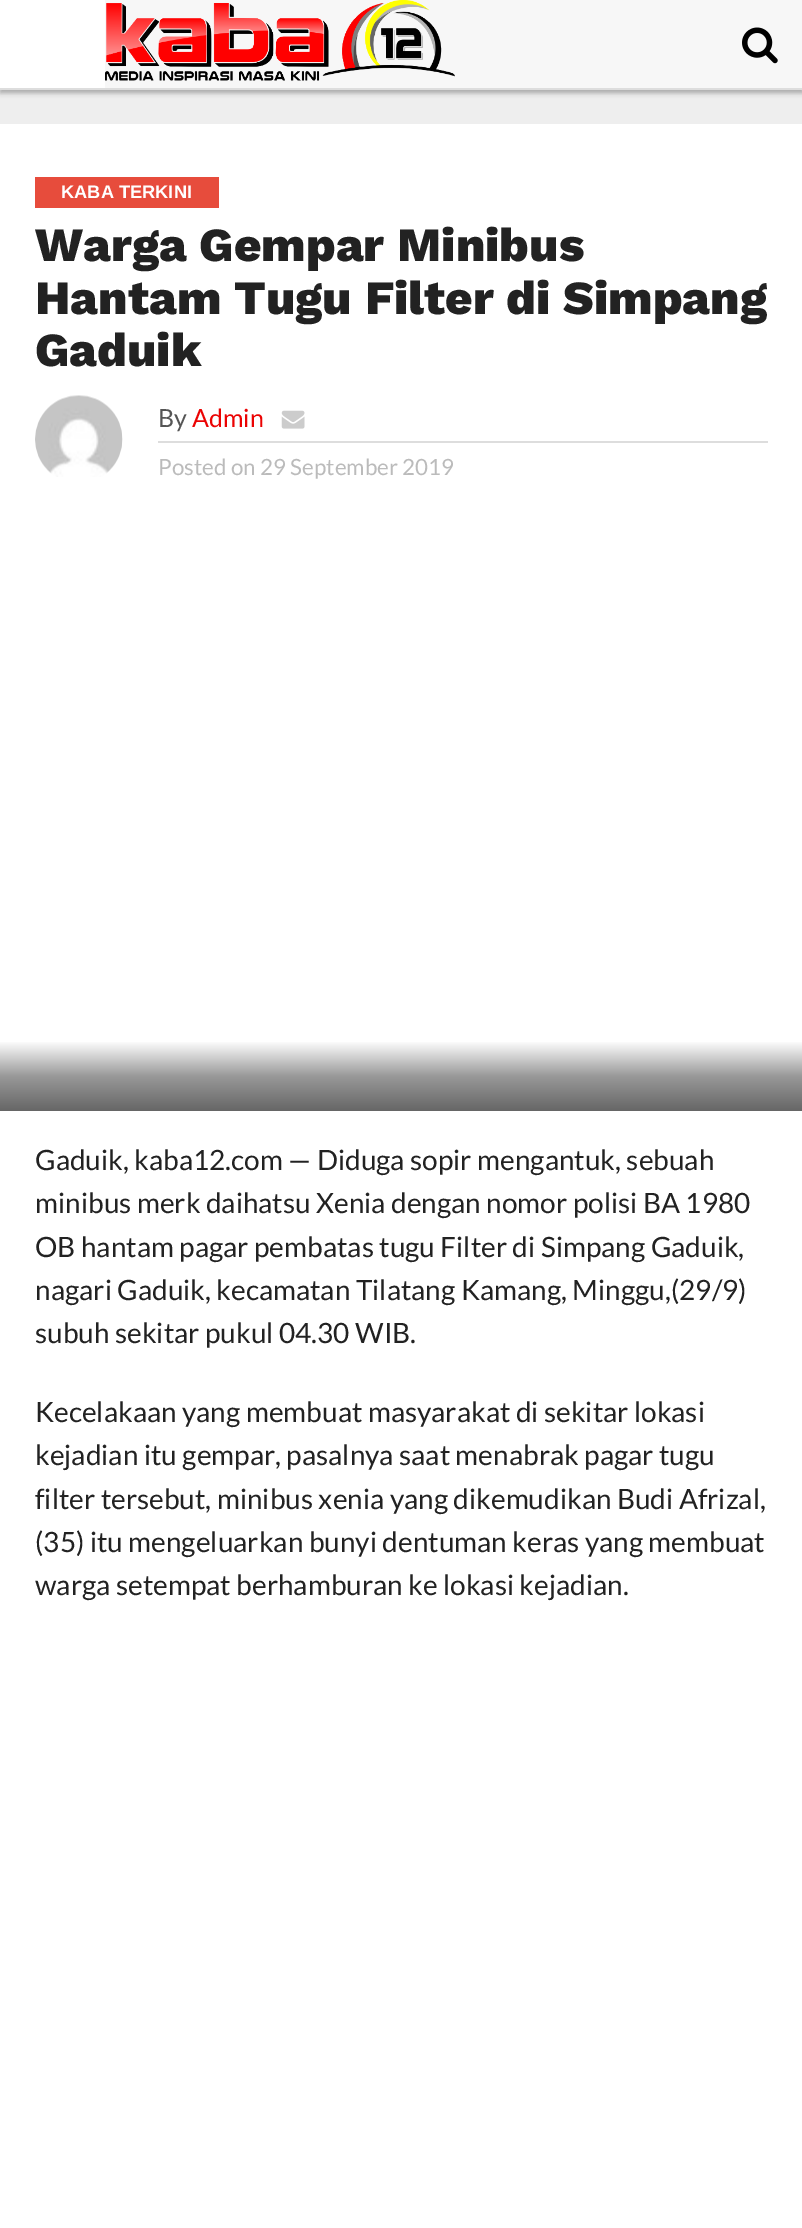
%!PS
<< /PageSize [802 2228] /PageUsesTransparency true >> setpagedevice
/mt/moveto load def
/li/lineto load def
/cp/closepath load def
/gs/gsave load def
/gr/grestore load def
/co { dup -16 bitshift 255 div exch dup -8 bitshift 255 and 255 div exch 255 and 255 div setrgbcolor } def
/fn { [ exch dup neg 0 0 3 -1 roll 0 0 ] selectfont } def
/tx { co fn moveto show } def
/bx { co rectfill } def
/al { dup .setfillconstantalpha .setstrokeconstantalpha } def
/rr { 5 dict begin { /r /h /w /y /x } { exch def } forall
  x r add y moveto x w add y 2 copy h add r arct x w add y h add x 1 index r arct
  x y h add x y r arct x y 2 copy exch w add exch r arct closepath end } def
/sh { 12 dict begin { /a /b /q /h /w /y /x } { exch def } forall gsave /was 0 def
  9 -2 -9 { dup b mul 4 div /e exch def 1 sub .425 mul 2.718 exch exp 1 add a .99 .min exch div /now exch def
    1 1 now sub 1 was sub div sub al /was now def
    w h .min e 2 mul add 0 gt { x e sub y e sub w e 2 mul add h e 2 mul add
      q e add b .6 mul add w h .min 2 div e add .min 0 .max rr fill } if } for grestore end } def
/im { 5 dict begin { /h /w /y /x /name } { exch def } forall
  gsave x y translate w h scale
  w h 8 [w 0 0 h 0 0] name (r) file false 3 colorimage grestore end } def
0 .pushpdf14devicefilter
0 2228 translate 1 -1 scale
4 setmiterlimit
0 0 802 2228 16#FFFFFF bx
0 90 802 34 16#EEEEEE bx
16#000000 co
0 4 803 89 0 2.5 .3 sh
105 0 697 88 16#F7F7F7 bx
0 88 802 2 16#DDDDDD bx
0 0 105 88 16#FFFFFF bx
(media/1.raw) 105 0 350 81 im
(media/2.raw) 742 27 36 37 im
35 177 184 31 16#E74C3C bx
(media/3.raw) 35 395 88 82 im
158 441 610 2 16#DDDDDD bx
(media/4.raw) 281 410 24 19 im
gs 0 1042 mt 802 1042 li 802 1111 li 0 1111 li cp clip newpath
<< /ShadingType 2 /ColorSpace /DeviceRGB /Coords [402 1041 402 1111] /Extend [true true] /Function << /FunctionType 3 /Domain [0 1] /Functions [<< /FunctionType 2 /Domain [0 1] /C0 [1 1 1] /C1 [.6 .6 .6] /N 1 >> << /FunctionType 2 /Domain [0 1] /C0 [.6 .6 .6] /C1 [.4 .4 .4] /N 1 >>] /Bounds [.5] /Encode [0 1 0 1] >> >> shfill gr
(KABA TERKINI) 61 198 /LiberationSans-Bold 18.25 16#FFFFFF tx
(Warga Gempar Minibus) 35 261 /WorkSans-ExtraBold 47.6 16#222222 tx
(Hantam Tugu Filter di Simpang) 35 314 /WorkSans-ExtraBold 47.6 16#222222 tx
(Gaduik) 35 366 /WorkSans-ExtraBold 47.6 16#222222 tx
(By) 158 427 /Lato-Regular 25 16#555555 tx
(Admin) 192 427 /Lato-Regular 25 16#EB0303 tx
(Posted on 29 September 2019) 158 475 /Lato-Regular 22.4 16#BBBBBB tx
(Gaduik, kaba12.com — Diduga sopir mengantuk, sebuah) 35 1170 /Lato-Regular 28 16#222222 tx
(minibus merk daihatsu Xenia dengan nomor polisi BA 1980) 35 1213 /Lato-Regular 28 16#222222 tx
(OB hantam pagar pembatas tugu Filter di Simpang Gaduik,) 35 1257 /Lato-Regular 28 16#222222 tx
(nagari Gaduik, kecamatan Tilatang Kamang, Minggu,\(29/9\)) 35 1300 /Lato-Regular 28 16#222222 tx
(subuh sekitar pukul 04.30 WIB.) 35 1343 /Lato-Regular 28 16#222222 tx
(Kecelakaan yang membuat masyarakat di sekitar lokasi) 35 1422 /Lato-Regular 28 16#222222 tx
(kejadian itu gempar, pasalnya saat menabrak pagar tugu) 35 1465 /Lato-Regular 28 16#222222 tx
(filter tersebut, minibus xenia yang dikemudikan Budi Afrizal,) 35 1509 /Lato-Regular 28 16#222222 tx
(\(35\) itu mengeluarkan bunyi dentuman keras yang membuat) 35 1552 /Lato-Regular 28 16#222222 tx
(warga setempat berhamburan ke lokasi kejadian.) 35 1595 /Lato-Regular 28 16#222222 tx
.poppdf14devicefilter showpage
